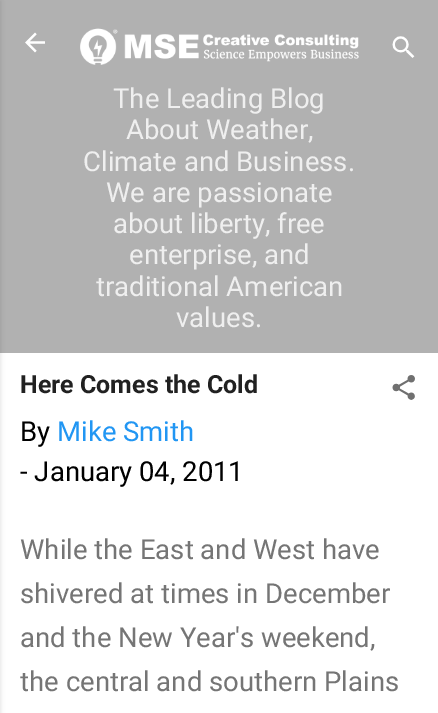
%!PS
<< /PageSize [438 713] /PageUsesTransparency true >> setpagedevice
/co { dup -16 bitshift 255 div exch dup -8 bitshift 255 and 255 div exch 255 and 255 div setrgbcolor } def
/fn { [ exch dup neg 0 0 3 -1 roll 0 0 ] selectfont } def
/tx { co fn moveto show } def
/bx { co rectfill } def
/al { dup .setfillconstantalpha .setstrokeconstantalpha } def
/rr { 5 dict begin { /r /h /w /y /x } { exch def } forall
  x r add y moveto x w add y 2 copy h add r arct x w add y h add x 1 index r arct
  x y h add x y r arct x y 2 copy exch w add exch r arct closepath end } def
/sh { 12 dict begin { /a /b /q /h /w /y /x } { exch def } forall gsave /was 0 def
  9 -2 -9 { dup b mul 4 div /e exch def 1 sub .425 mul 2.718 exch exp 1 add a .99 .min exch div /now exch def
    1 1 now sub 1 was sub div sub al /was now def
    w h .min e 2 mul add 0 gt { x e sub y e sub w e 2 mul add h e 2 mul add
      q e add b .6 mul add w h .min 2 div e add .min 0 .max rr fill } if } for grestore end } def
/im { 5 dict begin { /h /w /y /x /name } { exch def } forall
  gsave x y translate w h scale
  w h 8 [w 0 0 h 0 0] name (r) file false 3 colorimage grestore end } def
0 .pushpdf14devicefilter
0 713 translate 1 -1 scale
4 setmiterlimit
0 0 438 713 16#B1B1B1 bx
0 353 438 360 16#FFFFFF bx
16#000000 co
-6 1 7 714 0 2 .1 sh
(media/1.raw) 25 32 20 21 im
(media/2.raw) 392 36 23 22 im
(media/3.raw) 80 28 279 37 im
(media/4.raw) 392 375 23 25 im
(The Leading Blog) 113 108 /Roboto-Regular 27.5 16#EFEFEF tx
(About Weather,) 126 139 /Roboto-Regular 27.5 16#EFEFEF tx
(Climate and Business.) 83 171 /Roboto-Regular 27.5 16#EFEFEF tx
(We are passionate) 106 202 /Roboto-Regular 27.5 16#EFEFEF tx
(about liberty, free) 113 233 /Roboto-Regular 27.5 16#EFEFEF tx
(enterprise, and) 129 264 /Roboto-Regular 27.5 16#EFEFEF tx
(traditional American) 96 296 /Roboto-Regular 27.5 16#EFEFEF tx
(values.) 176 327 /Roboto-Regular 27.5 16#EFEFEF tx
(Here Comes the Cold) 20 393 /Roboto-Bold 25 16#212121 tx
(By) 20 441 /Roboto-Regular 27.5 16#000000 tx
(Mike Smith) 57 441 /Roboto-Regular 27.5 16#2196F3 tx
(- January 04, 2011) 20 481 /Roboto-Regular 27.5 16#000000 tx
(While the East and West have) 20 559 /Roboto-Regular 27.5 16#757575 tx
(shivered at times in December) 20 603 /Roboto-Regular 27.5 16#757575 tx
(and the New Year's weekend,) 20 647 /Roboto-Regular 27.5 16#757575 tx
(the central and southern Plains) 20 691 /Roboto-Regular 27.5 16#757575 tx
.poppdf14devicefilter showpage
